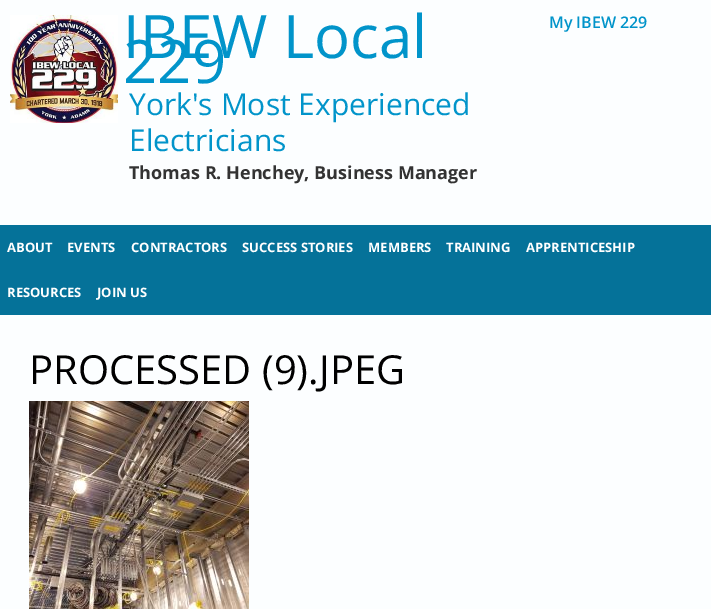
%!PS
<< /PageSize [711 609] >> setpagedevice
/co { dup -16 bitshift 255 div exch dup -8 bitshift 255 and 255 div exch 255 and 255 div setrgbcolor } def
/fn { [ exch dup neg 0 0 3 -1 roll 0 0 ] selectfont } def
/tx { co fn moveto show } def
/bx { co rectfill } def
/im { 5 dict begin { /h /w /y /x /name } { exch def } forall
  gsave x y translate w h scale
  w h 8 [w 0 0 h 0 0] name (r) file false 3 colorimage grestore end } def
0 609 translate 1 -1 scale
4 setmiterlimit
0 0 711 609 16#FCFEFF bx
(media/1.raw) 10 15 108 108 im
0 225 711 90 16#057299 bx
(media/2.raw) 29 401 220 208 im
(IBEW Local) 123 58 /OpenSans-Regular 60 16#0194CA tx
(229) 123 83 /OpenSans-Regular 60 16#0194CA tx
(York's Most Experienced) 129 115 /OpenSans-Regular 30 16#0194CA tx
(Electricians) 129 151 /OpenSans-Regular 30 16#0194CA tx
(Thomas R. Henchey, Business Manager) 129 179 /OpenSans-Bold 18 16#333333 tx
(My IBEW 229) 549 28 /OpenSans-SemiBold 16 16#0194CA tx
(ABOUT) 7 252 /OpenSans-Bold 13 16#FFFFFF tx
(EVENTS) 67 252 /OpenSans-Bold 13 16#FFFFFF tx
(CONTRACTORS) 131 252 /OpenSans-Bold 13 16#FFFFFF tx
(SUCCESS STORIES) 242 252 /OpenSans-Bold 13 16#FFFFFF tx
(MEMBERS) 368 252 /OpenSans-Bold 13 16#FFFFFF tx
(TRAINING) 446 252 /OpenSans-Bold 13 16#FFFFFF tx
(APPRENTICESHIP) 526 252 /OpenSans-Bold 13 16#FFFFFF tx
(RESOURCES) 7 297 /OpenSans-Bold 13 16#FFFFFF tx
(JOIN US) 97 297 /OpenSans-Bold 13 16#FFFFFF tx
(PROCESSED \(9\).JPEG) 29 384 /OpenSans-Regular 40 16#000000 tx
showpage
